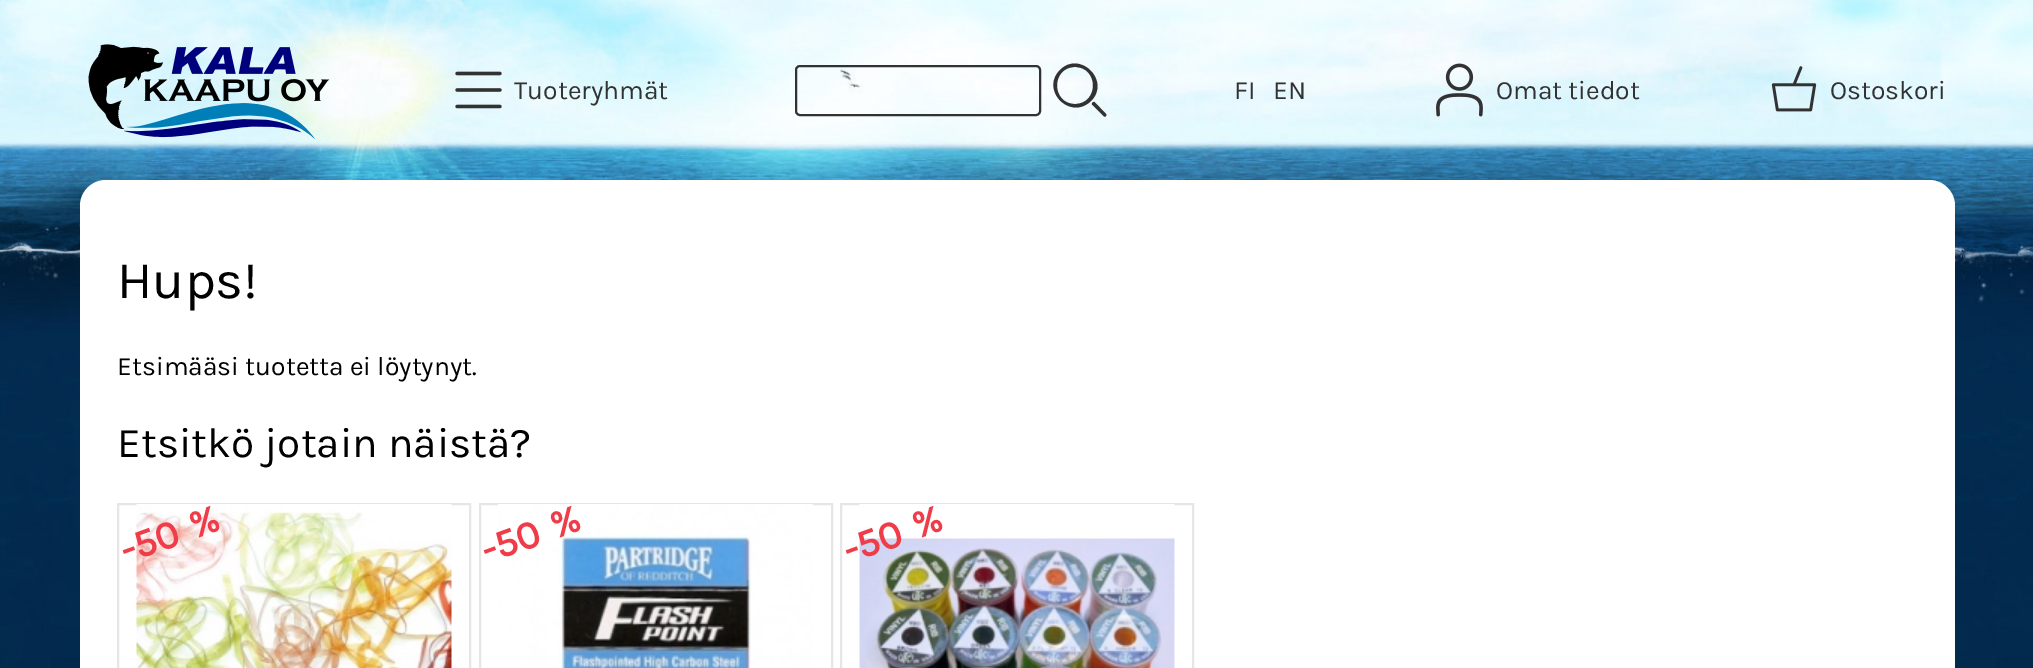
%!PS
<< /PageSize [2033 668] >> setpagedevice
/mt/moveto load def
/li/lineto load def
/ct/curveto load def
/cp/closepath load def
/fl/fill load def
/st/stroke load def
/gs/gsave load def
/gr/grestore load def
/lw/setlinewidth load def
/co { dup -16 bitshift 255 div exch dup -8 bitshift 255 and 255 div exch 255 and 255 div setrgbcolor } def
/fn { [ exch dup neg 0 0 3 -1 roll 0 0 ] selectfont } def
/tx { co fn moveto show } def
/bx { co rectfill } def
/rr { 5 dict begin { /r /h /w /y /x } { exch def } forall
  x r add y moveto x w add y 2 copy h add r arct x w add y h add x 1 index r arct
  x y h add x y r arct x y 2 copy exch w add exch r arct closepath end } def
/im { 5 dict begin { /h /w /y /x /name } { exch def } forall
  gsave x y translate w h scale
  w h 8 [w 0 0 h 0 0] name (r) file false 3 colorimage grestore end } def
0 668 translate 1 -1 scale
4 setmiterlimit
0 0 2033 668 16#FFFFFF bx
(media/1.raw) 0 0 2033 668 im
(media/2.raw) 88 44 242 95 im
(media/3.raw) 455 71 47 38 im
16#323232 co
2 lw
796 66 244 49 4 rr st
1060 70 mt 1080 50 1111 81 1091 101 ct 1070 121 1040 90 1060 70 ct cp 1075 67 mt 1051 67 1051 104 1075 104 ct 1099 104 1099 67 1075 67 ct cp eofill
1092.5 105 mt 1091 104 1092.5 101.5 1094.5 102 ct 1106 114 li 1107 115.5 1105.5 117 1104 116.5 ct cp eofill
(media/4.raw) 1436 63 47 54 im
(media/5.raw) 1771 66 46 46 im
16#FFFFFF co
80 180 1875 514 26 rr fl
16#E6E6E6 co
118 504 352 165 rectstroke
(media/6.raw) 136 504 316 164 im
480 504 352 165 rectstroke
(media/7.raw) 498 504 315 164 im
841 504 352 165 rectstroke
(media/8.raw) 859 504 316 164 im
(Tuoteryhmät) 514 99 /Karla-Regular 26.4 16#323232 tx
(FI) 1234 99 /Karla-Regular 26.4 16#323232 tx
(EN) 1273 99 /Karla-Regular 26.4 16#323232 tx
(Omat tiedot) 1496 99 /Karla-Regular 26.4 16#323232 tx
(Ostoskori) 1830 99 /Karla-Regular 26.4 16#323232 tx
(Hups!) 117 298 /Karla-Regular 53 16#000000 tx
(Etsimääsi tuotetta ei löytynyt.) 117 375 /Karla-Regular 26.4 16#000000 tx
(Etsitkö jotain näistä?) 117 457 /Karla-Regular 42.25 16#000000 tx
/Karla-Bold 39.5 fn
16#F03C48 co
gs 126 564 translate -20 rotate 0 0 mt 5 0 32 (-50 %) widthshow gr
gs 487 564 translate -20 rotate 0 0 mt 5 0 32 (-50 %) widthshow gr
gs 849 564 translate -20 rotate 0 0 mt 5 0 32 (-50 %) widthshow gr
showpage
